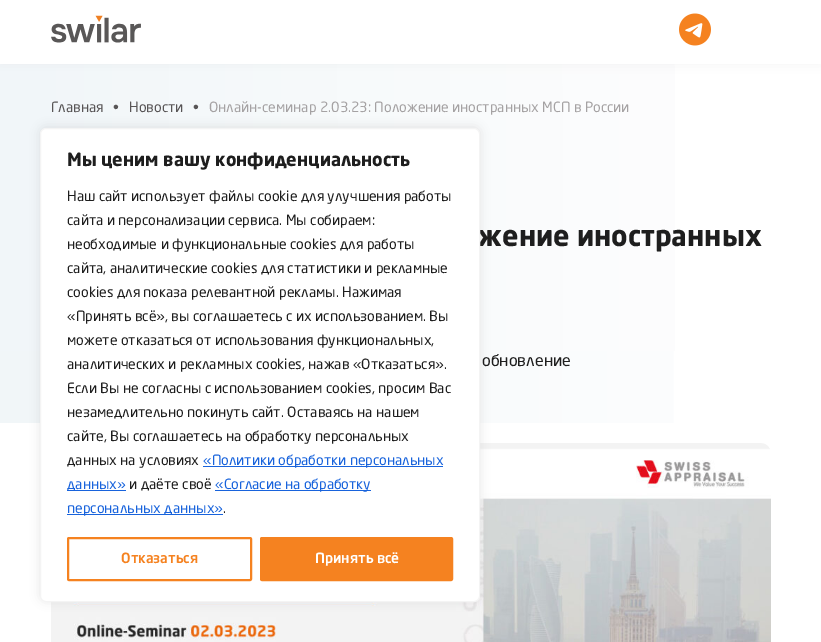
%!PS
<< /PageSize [821 642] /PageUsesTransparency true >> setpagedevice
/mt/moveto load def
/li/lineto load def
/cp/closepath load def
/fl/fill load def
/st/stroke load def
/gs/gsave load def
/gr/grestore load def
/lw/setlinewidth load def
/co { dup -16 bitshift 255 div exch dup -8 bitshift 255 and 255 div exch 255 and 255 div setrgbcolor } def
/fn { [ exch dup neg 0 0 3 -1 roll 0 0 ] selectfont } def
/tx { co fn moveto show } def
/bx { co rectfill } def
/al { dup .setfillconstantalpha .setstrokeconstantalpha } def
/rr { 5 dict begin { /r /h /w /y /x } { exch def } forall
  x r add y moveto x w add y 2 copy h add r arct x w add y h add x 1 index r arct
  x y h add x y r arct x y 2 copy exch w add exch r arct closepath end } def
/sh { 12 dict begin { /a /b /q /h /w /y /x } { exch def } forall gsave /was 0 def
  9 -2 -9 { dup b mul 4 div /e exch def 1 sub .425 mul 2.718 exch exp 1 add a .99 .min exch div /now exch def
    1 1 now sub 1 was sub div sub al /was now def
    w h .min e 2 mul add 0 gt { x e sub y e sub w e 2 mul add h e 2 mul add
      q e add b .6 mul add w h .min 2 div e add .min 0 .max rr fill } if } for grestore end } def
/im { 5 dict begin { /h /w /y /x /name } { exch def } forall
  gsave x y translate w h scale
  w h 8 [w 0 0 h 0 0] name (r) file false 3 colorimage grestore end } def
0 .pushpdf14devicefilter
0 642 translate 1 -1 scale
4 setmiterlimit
0 0 821 642 16#FFFFFF bx
gs 0 64 mt 675 64 li 675 351 li 0 351 li cp clip newpath
<< /ShadingType 2 /ColorSpace /DeviceRGB /Coords [0 176 821 175] /Extend [true true] /Function << /FunctionType 2 /Domain [0 1] /C0 [.945 .965 .976] /C1 [1 1 1] /N 1 >> >> shfill gr
16#D1D1D1 co
0 -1 821 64 0 6.5 .3 sh
0 0 821 64 16#FFFFFF bx
(media/1.raw) 51 15 90 28 im
(media/2.raw) 679 13 32 33 im
gs 0 351 mt 674 351 li 674 423 li 0 423 li cp clip newpath
<< /ShadingType 2 /ColorSpace /DeviceRGB /Coords [0 387 821 387] /Extend [true true] /Function << /FunctionType 2 /Domain [0 1] /C0 [.945 .965 .973] /C1 [1 1 1] /N 1 >> >> shfill gr
(media/3.raw) 51 443 720 199 im
16#ACABAB co
40 127 440 474 6 5 .3 sh
(Главная) 51 112 /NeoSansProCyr-Regular 14 16#585556 tx
(•) 113 112 /NeoSansProCyr-Regular 14 16#585556 tx
(Новости) 129 112 /NeoSansProCyr-Regular 14 16#585556 tx
(•) 193 112 /NeoSansProCyr-Regular 14 16#585556 tx
(Онлайн-семинар 2.03.23: Положение иностранных МСП в России) 209 112 /NeoSansProCyr-Regular 14 16#A5A2A3 tx
(жение иностранных) 477 246 /NeoSansProCyr-Bold 28 16#1E1E1E tx
(обновление) 482 366 /NeoSansProCyr-Regular 16 16#1E1E1E tx
16#FFFFFF co
40.5 128.5 439 473 5.5 rr gs fl gr
16#F4F4F4 co
st
(Мы ценим вашу конфиденциальность) 67 166 /NeoSansProCyr-Bold 18 16#1E1E1E tx
(Наш сайт использует файлы cookie для улучшения работы) 67 201 /NeoSansProCyr-Regular 14 16#1E1E1E tx
(сайта и персонализации сервиса. Мы собираем:) 67 225 /NeoSansProCyr-Regular 14 16#1E1E1E tx
(необходимые и функциональные cookies для работы) 67 249 /NeoSansProCyr-Regular 14 16#1E1E1E tx
(сайта, аналитические cookies для статистики и рекламные) 67 273 /NeoSansProCyr-Regular 14 16#1E1E1E tx
(cookies для показа релевантной рекламы. Нажимая) 67 297 /NeoSansProCyr-Regular 14 16#1E1E1E tx
(«Принять всё», вы соглашаетесь с их использованием. Вы) 67 321 /NeoSansProCyr-Regular 14 16#1E1E1E tx
(можете отказаться от использования функциональных,) 67 345 /NeoSansProCyr-Regular 14 16#1E1E1E tx
(аналитических и рекламных cookies, нажав «Отказаться».) 67 369 /NeoSansProCyr-Regular 14 16#1E1E1E tx
(Если Вы не согласны с использованием cookies, просим Вас) 67 393 /NeoSansProCyr-Regular 14 16#1E1E1E tx
(незамедлительно покинуть сайт. Оставаясь на нашем) 67 417 /NeoSansProCyr-Regular 14 16#1E1E1E tx
(сайте, Вы соглашаетесь на обработку персональных) 67 441 /NeoSansProCyr-Regular 14 16#1E1E1E tx
(данных на условиях) 67 465 /NeoSansProCyr-Regular 14 16#1E1E1E tx
203 466 240 1 16#1863DC bx
(«Политики обработки персональных) 203 465 /NeoSansProCyr-Regular 14 16#1863DC tx
67 490 59 1 16#1863DC bx
(данных») 67 489 /NeoSansProCyr-Regular 14 16#1863DC tx
(и даёте своё) 129 489 /NeoSansProCyr-Regular 14 16#1E1E1E tx
215 490 156 1 16#1863DC bx
(«Согласие на обработку) 215 489 /NeoSansProCyr-Regular 14 16#1863DC tx
67 514 156 1 16#1863DC bx
(персональных данных») 67 513 /NeoSansProCyr-Regular 14 16#1863DC tx
(.) 223 513 /NeoSansProCyr-Regular 14 16#1E1E1E tx
16#F58220 co
2 lw
68 538 183 42 1 rr st
(Отказаться) 121 563 /NeoSansProCyr-Medium 14 16#F58220 tx
261 538 191 42 1 rr gs fl gr
st
(Принять всё) 315 563 /NeoSansProCyr-Medium 14 16#FFFFFF tx
.poppdf14devicefilter showpage
